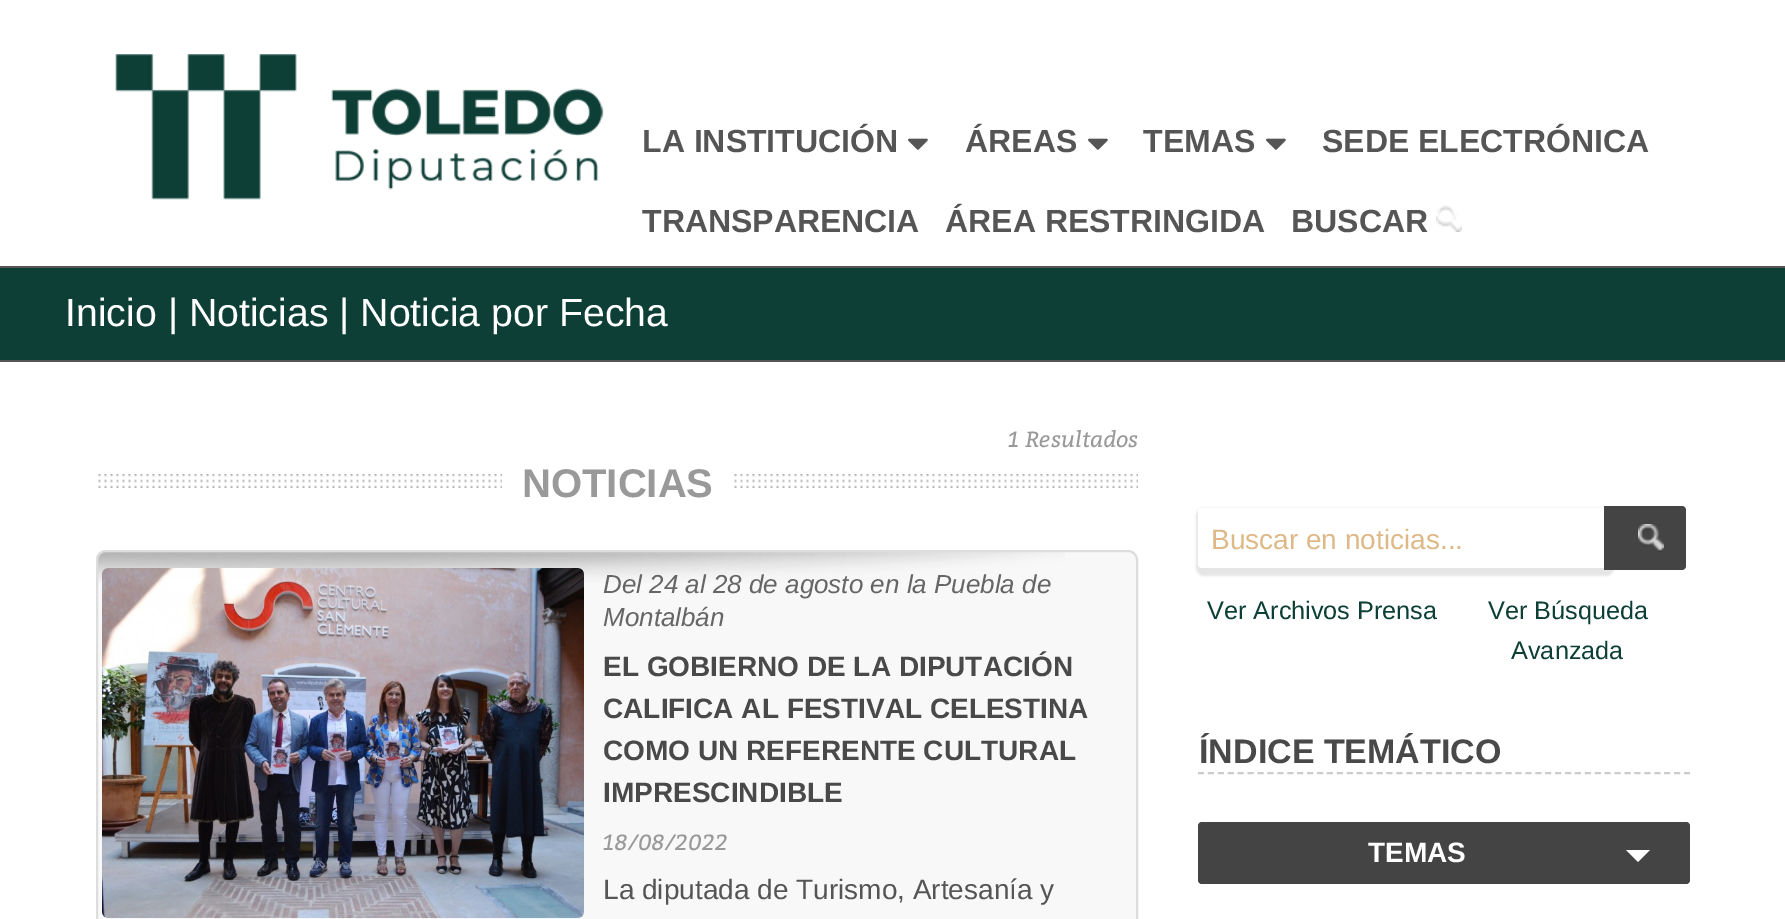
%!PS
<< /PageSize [1785 919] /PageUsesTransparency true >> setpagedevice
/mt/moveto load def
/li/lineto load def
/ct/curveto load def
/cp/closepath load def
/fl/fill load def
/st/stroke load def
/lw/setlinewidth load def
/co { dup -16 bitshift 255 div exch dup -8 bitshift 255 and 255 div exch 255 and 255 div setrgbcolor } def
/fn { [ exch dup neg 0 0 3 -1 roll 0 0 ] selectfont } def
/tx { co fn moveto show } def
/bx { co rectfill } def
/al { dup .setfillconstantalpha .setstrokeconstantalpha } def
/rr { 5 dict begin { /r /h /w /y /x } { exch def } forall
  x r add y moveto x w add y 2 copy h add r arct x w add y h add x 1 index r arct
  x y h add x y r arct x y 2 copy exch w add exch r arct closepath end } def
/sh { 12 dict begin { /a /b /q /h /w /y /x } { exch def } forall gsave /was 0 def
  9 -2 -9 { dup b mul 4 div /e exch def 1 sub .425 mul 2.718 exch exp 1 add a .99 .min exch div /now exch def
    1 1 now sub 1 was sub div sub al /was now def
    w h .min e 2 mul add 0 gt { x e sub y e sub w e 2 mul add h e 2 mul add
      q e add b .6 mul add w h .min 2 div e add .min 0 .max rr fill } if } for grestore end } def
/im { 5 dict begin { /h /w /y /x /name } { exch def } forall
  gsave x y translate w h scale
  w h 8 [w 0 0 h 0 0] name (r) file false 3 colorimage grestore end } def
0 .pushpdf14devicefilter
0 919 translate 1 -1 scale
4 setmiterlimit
0 0 1785 919 16#FFFFFF bx
(media/1.raw) 115 54 489 146 im
(media/2.raw) 908 138 20 12 im
(media/2.raw) 1088 138 20 12 im
(media/2.raw) 1266 138 20 12 im
(media/3.raw) 1436 205 26 27 im
0 268 1785 92 16#0D3F36 bx
0 266 1785 2 16#555555 bx
0 360 1785 2 16#555555 bx
(media/4.raw) 98 474 1040 14 im
502 474 229 14 16#FFFFFF bx
16#F8F8F8 co
96 550 1042 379 10 rr fl
(media/5.raw) 96 552 969 31 im
16#DDDDDD co
2 lw
97 551 1040 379 9 rr st
(media/6.raw) 102 568 482 350 im
16#000000 co
1196 508 418 68 8 1 .1 sh
16#FFFFFF co
1198 508 410 60 4 rr fl
16#444444 co
1604 506 mt 1682 506 li 1684 506 1686 508 1686 510 ct 1686 566 li 1686 568 1684 570 1682 570 ct 1604 570 li cp fl
(media/7.raw) 1638 524 26 28 im
16#CCCCCC co
[6 3.92] 0 setdash
1198 773 mt 1690 773 li st
16#444444 co
1198 822 492 62 4 rr fl
16#FFFFFF co
1626 850 mt 1650 850 li 1638 862 li cp fl
(LA INSTITUCIÓN) 642 152 /LiberationSans-Bold 32 16#555555 tx
(ÁREAS) 965 152 /LiberationSans-Bold 32 16#555555 tx
(TEMAS) 1143 152 /LiberationSans-Bold 32 16#555555 tx
(SEDE ELECTRÓNICA) 1322 152 /LiberationSans-Bold 32 16#555555 tx
(TRANSPARENCIA) 642 232 /LiberationSans-Bold 32 16#555555 tx
(ÁREA RESTRINGIDA) 945 232 /LiberationSans-Bold 32 16#555555 tx
(BUSCAR) 1291 232 /LiberationSans-Bold 32 16#555555 tx
(Inicio | Noticias | Noticia por Fecha) 65 326 /LiberationSans-Regular 39.25 16#FFFFFF tx
(1 Resultados) 1008 447 /Bitter-Italic 22 16#999999 tx
(NOTICIAS) 522 497 /LiberationSans-Bold 40 16#999999 tx
(Del 24 al 28 de agosto en la Puebla de) 603 593 /LiberationSans-Italic 26 16#666666 tx
(Montalbán) 603 626 /LiberationSans-Italic 26 16#666666 tx
(EL GOBIERNO DE LA DIPUTACIÓN) 603 676 /LiberationSans-Bold 28 16#494949 tx
(CALIFICA AL FESTIVAL CELESTINA) 603 718 /LiberationSans-Bold 28 16#494949 tx
(COMO UN REFERENTE CULTURAL) 603 760 /LiberationSans-Bold 28 16#494949 tx
(IMPRESCINDIBLE) 603 802 /LiberationSans-Bold 28 16#494949 tx
(18/08/2022) 603 850 /Bitter-Italic 22 16#999999 tx
(La diputada de Turismo, Artesanía y) 603 899 /LiberationSans-Regular 28 16#555555 tx
(Buscar en noticias...) 1211 549 /LiberationSans-Regular 28 16#DEB887 tx
(Ver Archivos Prensa) 1207 619 /LiberationSans-Regular 25.25 16#0D3F36 tx
(Ver Búsqueda) 1488 619 /LiberationSans-Regular 25.25 16#0D3F36 tx
(Avanzada) 1511 659 /LiberationSans-Regular 25.25 16#0D3F36 tx
(ÍNDICE TEMÁTICO) 1199 763 /LiberationSans-Bold 34 16#494949 tx
(TEMAS) 1368 862 /LiberationSans-Bold 28 16#FFFFFF tx
.poppdf14devicefilter showpage
